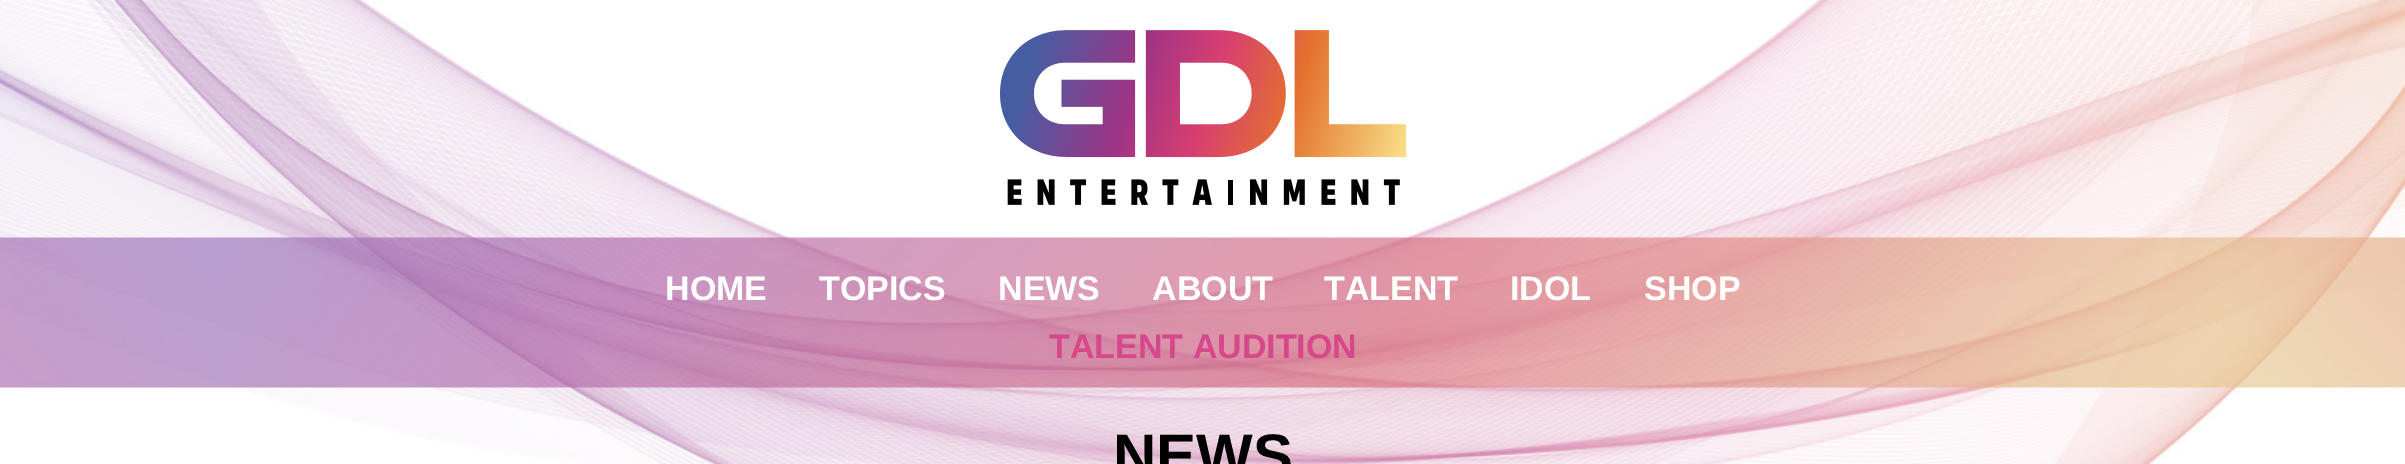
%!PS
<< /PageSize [2405 464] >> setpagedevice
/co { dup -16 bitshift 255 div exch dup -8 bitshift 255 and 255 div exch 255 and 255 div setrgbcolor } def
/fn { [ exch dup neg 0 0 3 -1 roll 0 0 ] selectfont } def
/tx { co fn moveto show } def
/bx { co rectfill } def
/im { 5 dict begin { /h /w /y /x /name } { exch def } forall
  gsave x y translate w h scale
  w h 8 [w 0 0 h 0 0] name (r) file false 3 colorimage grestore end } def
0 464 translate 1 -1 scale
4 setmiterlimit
0 0 2405 464 16#FFFFFF bx
(media/1.raw) 0 0 2405 464 im
(media/2.raw) 1000 30 406 175 im
(HOME) 665 300 /LiberationSans-Bold 34 16#FFFFFF tx
(TOPICS) 819 300 /LiberationSans-Bold 34 16#FFFFFF tx
(NEWS) 998 300 /LiberationSans-Bold 34 16#FFFFFF tx
(ABOUT) 1152 300 /LiberationSans-Bold 34 16#FFFFFF tx
(TALENT) 1324 300 /LiberationSans-Bold 34 16#FFFFFF tx
(IDOL) 1510 300 /LiberationSans-Bold 34 16#FFFFFF tx
(SHOP) 1644 300 /LiberationSans-Bold 34 16#FFFFFF tx
(TALENT AUDITION) 1049 358 /LiberationSans-Bold 34 16#D7488B tx
(NEWS) 1113 476 /LiberationSans-Bold 60 16#000000 tx
showpage
